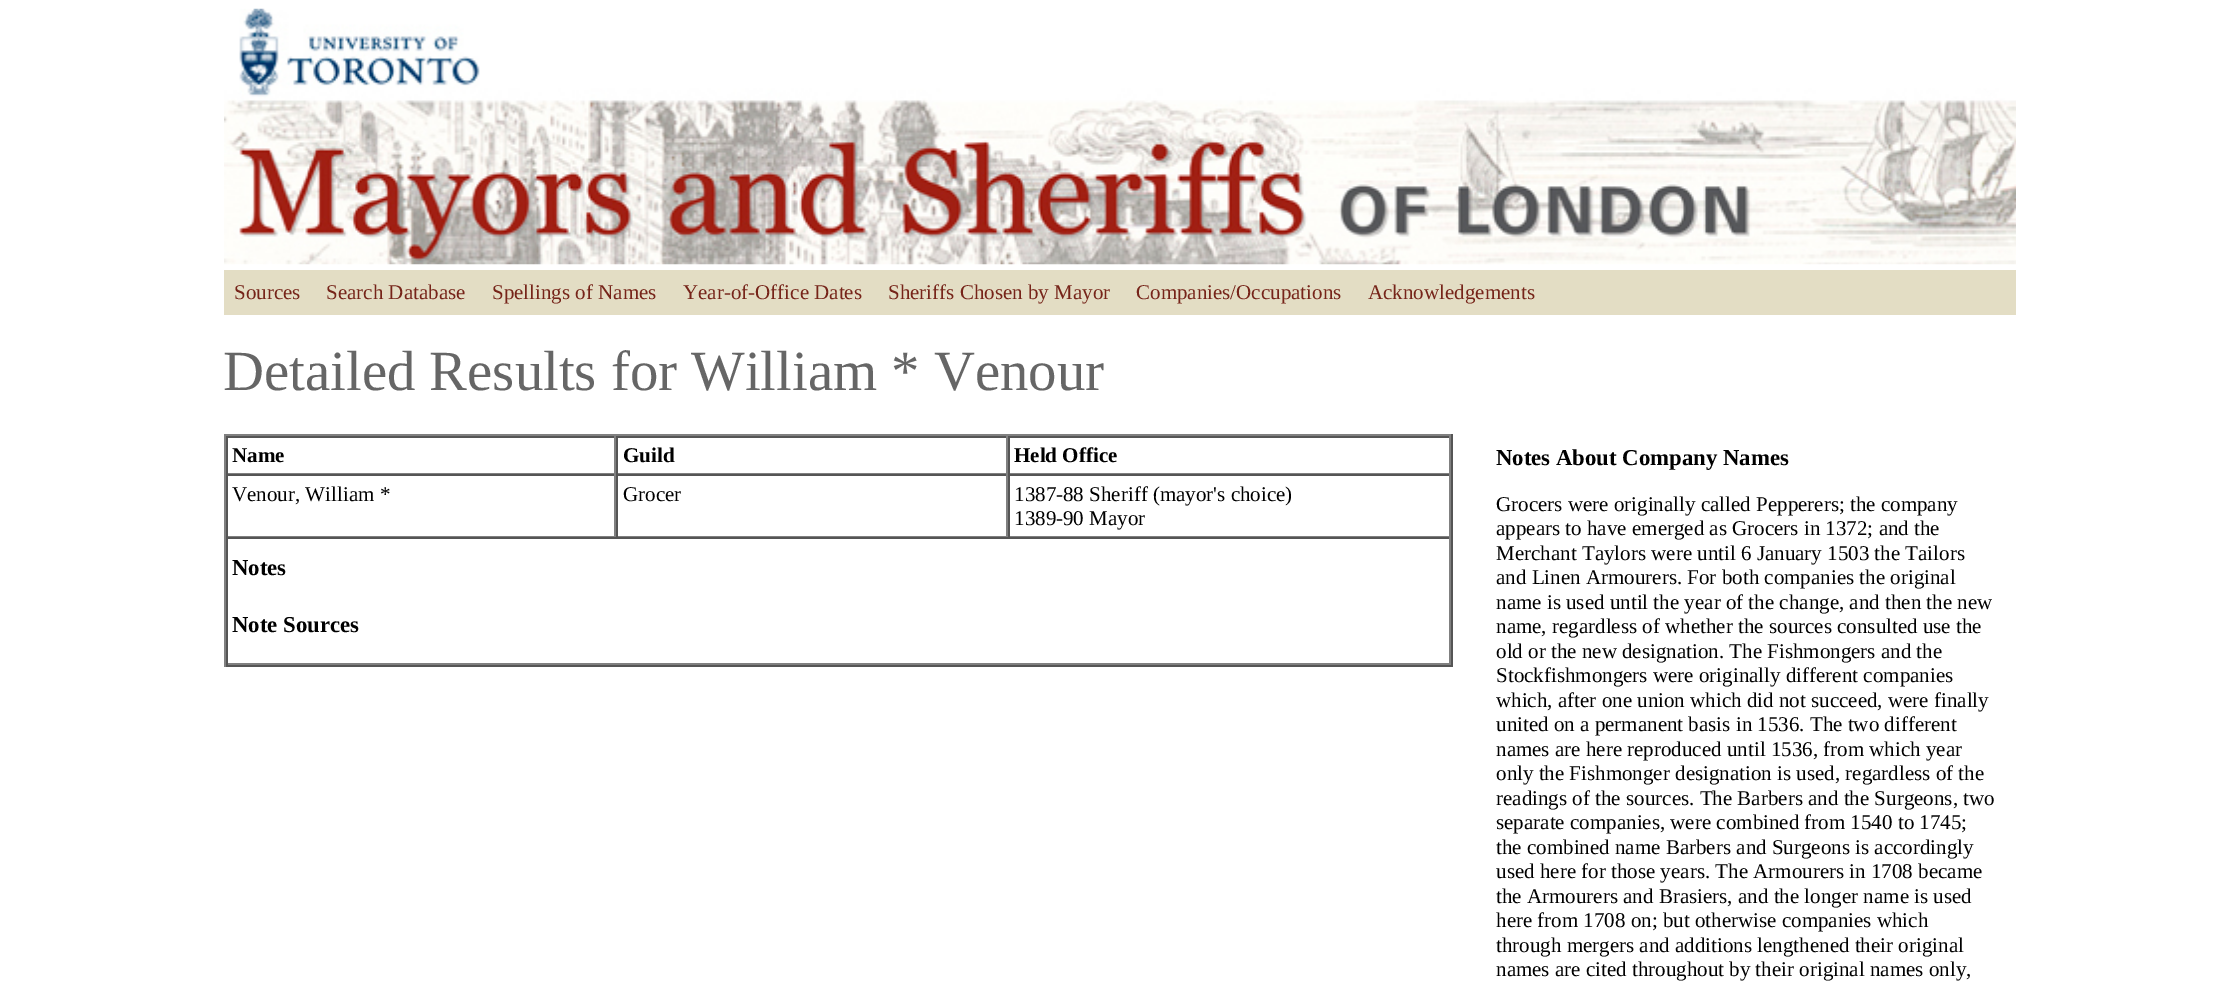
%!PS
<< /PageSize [2238 989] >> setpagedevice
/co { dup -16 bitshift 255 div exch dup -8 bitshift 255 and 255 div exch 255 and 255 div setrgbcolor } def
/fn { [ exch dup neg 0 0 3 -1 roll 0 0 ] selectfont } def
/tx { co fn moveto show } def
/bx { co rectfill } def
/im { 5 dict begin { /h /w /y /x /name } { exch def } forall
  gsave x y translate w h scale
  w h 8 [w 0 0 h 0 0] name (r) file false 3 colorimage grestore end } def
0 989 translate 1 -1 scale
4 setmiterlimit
0 0 2238 989 16#FFFFFF bx
(media/1.raw) 224 8 1792 257 im
224 270 1792 45 16#E3DDC4 bx
224 434 1229 2 16#808080 bx
1451 434 2 233 16#555555 bx
224 665 1229 2 16#555555 bx
224 434 2 233 16#808080 bx
226 436 1225 2 16#555555 bx
614 436 2 38 16#808080 bx
226 473 390 1 16#808080 bx
226 436 2 38 16#555555 bx
1006 436 2 38 16#808080 bx
616 473 392 1 16#808080 bx
616 436 2 38 16#555555 bx
1449 436 2 38 16#808080 bx
1008 473 443 1 16#808080 bx
1008 436 2 38 16#555555 bx
226 474 1225 2 16#555555 bx
614 474 2 63 16#808080 bx
226 536 390 1 16#808080 bx
226 474 2 63 16#555555 bx
1006 474 2 63 16#808080 bx
616 536 392 1 16#808080 bx
616 474 2 63 16#555555 bx
1449 474 2 63 16#808080 bx
1008 536 443 1 16#808080 bx
1008 474 2 63 16#555555 bx
226 537 1225 2 16#555555 bx
1449 537 2 128 16#808080 bx
226 663 1225 2 16#808080 bx
226 537 2 128 16#555555 bx
(Sources) 234 299 /LiberationSerif-Regular 21 16#762419 tx
(Search Database) 326 299 /LiberationSerif-Regular 21 16#762419 tx
(Spellings of Names) 492 299 /LiberationSerif-Regular 21 16#762419 tx
(Year-of-Office Dates) 683 299 /LiberationSerif-Regular 21 16#762419 tx
(Sheriffs Chosen by Mayor) 888 299 /LiberationSerif-Regular 21 16#762419 tx
(Companies/Occupations) 1136 299 /LiberationSerif-Regular 21 16#762419 tx
(Acknowledgements) 1368 299 /LiberationSerif-Regular 21 16#762419 tx
(Detailed Results for William * Venour) 223 390 /LiberationSerif-Regular 56.75 16#666666 tx
(Name) 232 462 /LiberationSerif-Bold 21 16#000000 tx
(Guild) 623 462 /LiberationSerif-Bold 21 16#000000 tx
(Held Office) 1014 462 /LiberationSerif-Bold 21 16#000000 tx
(Venour, William *) 232 501 /LiberationSerif-Regular 21 16#000000 tx
(Grocer) 623 501 /LiberationSerif-Regular 21 16#000000 tx
(1387-88 Sheriff \(mayor's choice\)) 1014 501 /LiberationSerif-Regular 21 16#000000 tx
(1389-90 Mayor) 1014 525 /LiberationSerif-Regular 21 16#000000 tx
(Notes) 232 575 /LiberationSerif-Bold 22.75 16#000000 tx
(Note Sources) 232 632 /LiberationSerif-Bold 22.75 16#000000 tx
(Notes About Company Names) 1496 465 /LiberationSerif-Bold 22.75 16#000000 tx
(Grocers were originally called Pepperers; the company) 1496 511 /LiberationSerif-Regular 21 16#000000 tx
(appears to have emerged as Grocers in 1372; and the) 1496 535 /LiberationSerif-Regular 21 16#000000 tx
(Merchant Taylors were until 6 January 1503 the Tailors) 1496 560 /LiberationSerif-Regular 21 16#000000 tx
(and Linen Armourers. For both companies the original) 1496 584 /LiberationSerif-Regular 21 16#000000 tx
(name is used until the year of the change, and then the new) 1496 609 /LiberationSerif-Regular 21 16#000000 tx
(name, regardless of whether the sources consulted use the) 1496 633 /LiberationSerif-Regular 21 16#000000 tx
(old or the new designation. The Fishmongers and the) 1496 658 /LiberationSerif-Regular 21 16#000000 tx
(Stockfishmongers were originally different companies) 1496 682 /LiberationSerif-Regular 21 16#000000 tx
(which, after one union which did not succeed, were finally) 1496 707 /LiberationSerif-Regular 21 16#000000 tx
(united on a permanent basis in 1536. The two different) 1496 731 /LiberationSerif-Regular 21 16#000000 tx
(names are here reproduced until 1536, from which year) 1496 756 /LiberationSerif-Regular 21 16#000000 tx
(only the Fishmonger designation is used, regardless of the) 1496 780 /LiberationSerif-Regular 21 16#000000 tx
(readings of the sources. The Barbers and the Surgeons, two) 1496 805 /LiberationSerif-Regular 21 16#000000 tx
(separate companies, were combined from 1540 to 1745;) 1496 829 /LiberationSerif-Regular 21 16#000000 tx
(the combined name Barbers and Surgeons is accordingly) 1496 854 /LiberationSerif-Regular 21 16#000000 tx
(used here for those years. The Armourers in 1708 became) 1496 878 /LiberationSerif-Regular 21 16#000000 tx
(the Armourers and Brasiers, and the longer name is used) 1496 903 /LiberationSerif-Regular 21 16#000000 tx
(here from 1708 on; but otherwise companies which) 1496 927 /LiberationSerif-Regular 21 16#000000 tx
(through mergers and additions lengthened their original) 1496 952 /LiberationSerif-Regular 21 16#000000 tx
(names are cited throughout by their original names only,) 1496 976 /LiberationSerif-Regular 21 16#000000 tx
showpage
